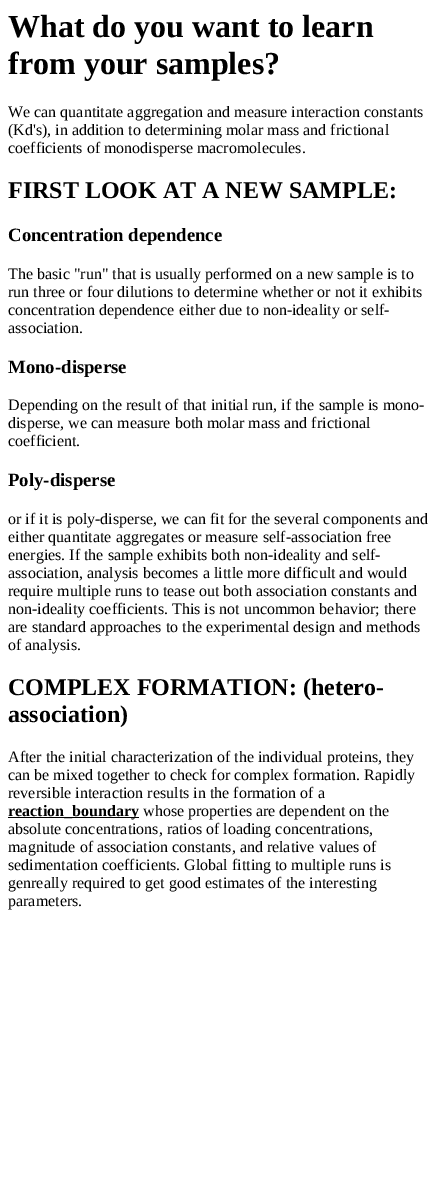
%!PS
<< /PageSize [437 1186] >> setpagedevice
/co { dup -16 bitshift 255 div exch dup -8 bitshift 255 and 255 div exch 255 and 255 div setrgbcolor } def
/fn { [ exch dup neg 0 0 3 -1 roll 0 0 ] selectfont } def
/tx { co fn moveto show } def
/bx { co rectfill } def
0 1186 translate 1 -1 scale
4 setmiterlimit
0 0 437 1186 16#FFFFFF bx
8 817 131 1 16#000000 bx
(What do you want to learn) 8 37 /LiberationSerif-Bold 32 16#000000 tx
(from your samples?) 8 74 /LiberationSerif-Bold 32 16#000000 tx
(We can quantitate aggregation and measure interaction constants) 8 117 /LiberationSerif-Regular 16 16#000000 tx
(\(Kd's\), in addition to determining molar mass and frictional) 8 135 /LiberationSerif-Regular 16 16#000000 tx
(coefficients of monodisperse macromolecules.) 8 153 /LiberationSerif-Regular 16 16#000000 tx
(FIRST LOOK AT A NEW SAMPLE:) 8 198 /LiberationSerif-Bold 24 16#000000 tx
(Concentration dependence) 8 241 /LiberationSerif-Bold 18.75 16#000000 tx
(The basic "run" that is usually performed on a new sample is to) 8 279 /LiberationSerif-Regular 16 16#000000 tx
(run three or four dilutions to determine whether or not it exhibits) 8 297 /LiberationSerif-Regular 16 16#000000 tx
(concentration dependence either due to non-ideality or self-) 8 315 /LiberationSerif-Regular 16 16#000000 tx
(association.) 8 333 /LiberationSerif-Regular 16 16#000000 tx
(Mono-disperse) 8 373 /LiberationSerif-Bold 18.75 16#000000 tx
(Depending on the result of that initial run, if the sample is mono-) 8 410 /LiberationSerif-Regular 16 16#000000 tx
(disperse, we can measure both molar mass and frictional) 8 428 /LiberationSerif-Regular 16 16#000000 tx
(coefficient.) 8 446 /LiberationSerif-Regular 16 16#000000 tx
(Poly-disperse) 8 486 /LiberationSerif-Bold 18.75 16#000000 tx
(or if it is poly-disperse, we can fit for the several components and) 8 524 /LiberationSerif-Regular 16 16#000000 tx
(either quantitate aggregates or measure self-association free) 8 542 /LiberationSerif-Regular 16 16#000000 tx
(energies. If the sample exhibits both non-ideality and self-) 8 560 /LiberationSerif-Regular 16 16#000000 tx
(association, analysis becomes a little more difficult and would) 8 578 /LiberationSerif-Regular 16 16#000000 tx
(require multiple runs to tease out both association constants and) 8 596 /LiberationSerif-Regular 16 16#000000 tx
(non-ideality coefficients. This is not uncommon behavior; there) 8 614 /LiberationSerif-Regular 16 16#000000 tx
(are standard approaches to the experimental design and methods) 8 632 /LiberationSerif-Regular 16 16#000000 tx
(of analysis.) 8 650 /LiberationSerif-Regular 16 16#000000 tx
(COMPLEX FORMATION: \(hetero-) 8 695 /LiberationSerif-Bold 24 16#000000 tx
(association\)) 8 722 /LiberationSerif-Bold 24 16#000000 tx
(After the initial characterization of the individual proteins, they) 8 762 /LiberationSerif-Regular 16 16#000000 tx
(can be mixed together to check for complex formation. Rapidly) 8 780 /LiberationSerif-Regular 16 16#000000 tx
(reversible interaction results in the formation of a) 8 798 /LiberationSerif-Regular 16 16#000000 tx
(reaction_boundary) 8 816 /LiberationSerif-Bold 16 16#000000 tx
(whose properties are dependent on the) 143 816 /LiberationSerif-Regular 16 16#000000 tx
(absolute concentrations, ratios of loading concentrations,) 8 834 /LiberationSerif-Regular 16 16#000000 tx
(magnitude of association constants, and relative values of) 8 852 /LiberationSerif-Regular 16 16#000000 tx
(sedimentation coefficients. Global fitting to multiple runs is) 8 870 /LiberationSerif-Regular 16 16#000000 tx
(genreally required to get good estimates of the interesting) 8 888 /LiberationSerif-Regular 16 16#000000 tx
(parameters.) 8 906 /LiberationSerif-Regular 16 16#000000 tx
showpage
